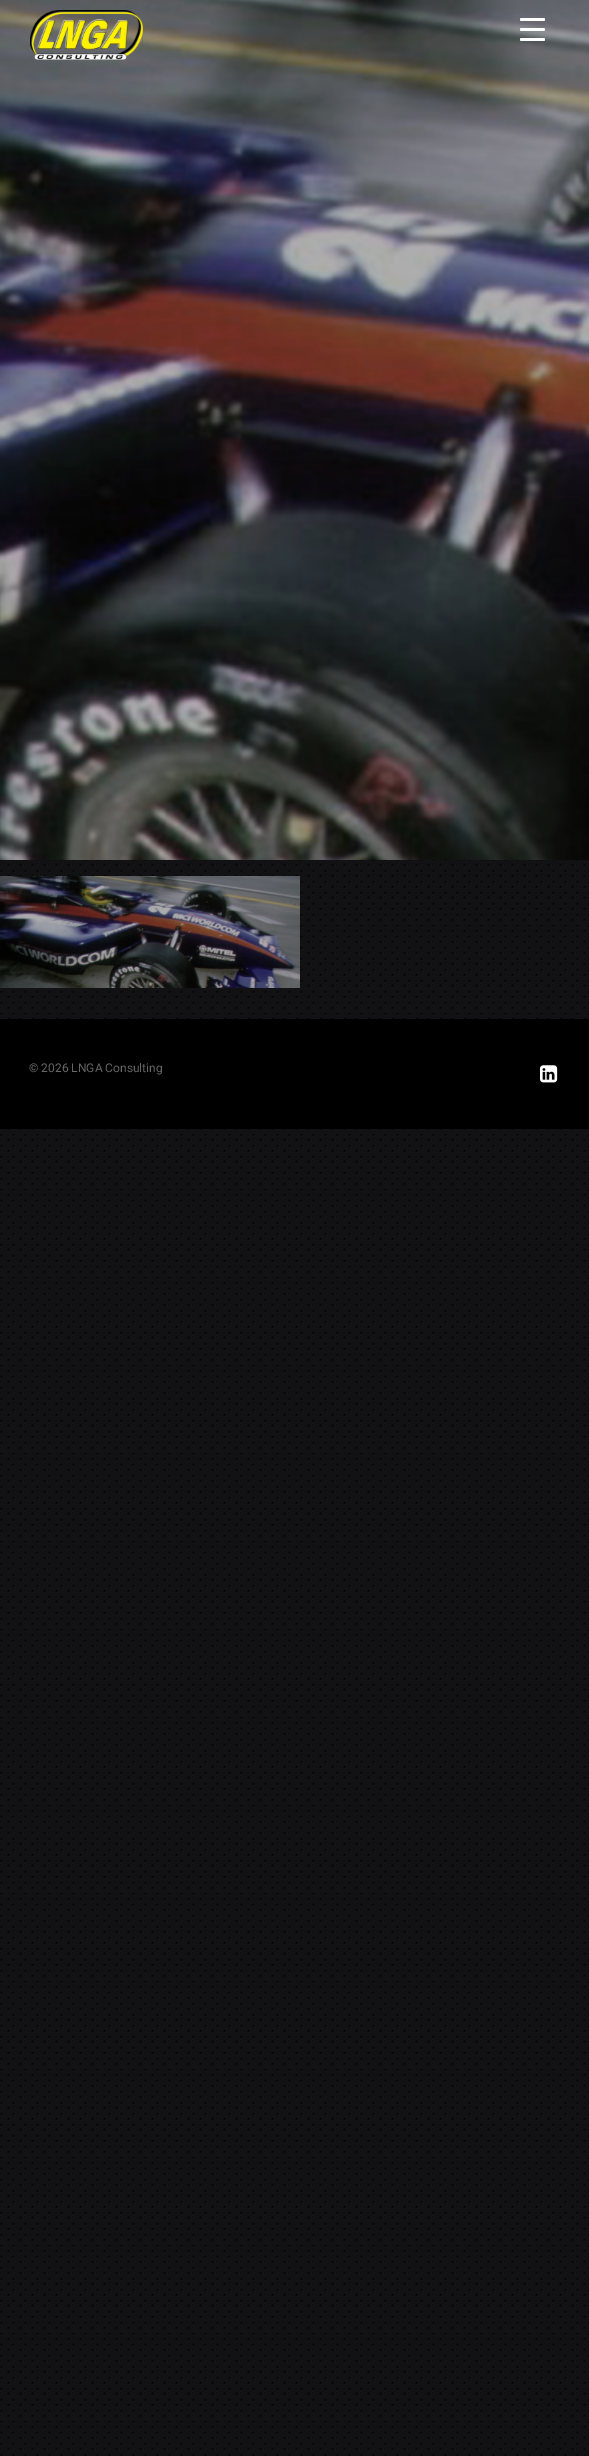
%!PS
<< /PageSize [589 2456] >> setpagedevice
/fl/fill load def
/co { dup -16 bitshift 255 div exch dup -8 bitshift 255 and 255 div exch 255 and 255 div setrgbcolor } def
/fn { [ exch dup neg 0 0 3 -1 roll 0 0 ] selectfont } def
/tx { co fn moveto show } def
/bx { co rectfill } def
/rr { 5 dict begin { /r /h /w /y /x } { exch def } forall
  x r add y moveto x w add y 2 copy h add r arct x w add y h add x 1 index r arct
  x y h add x y r arct x y 2 copy exch w add exch r arct closepath end } def
/im { 5 dict begin { /h /w /y /x /name } { exch def } forall
  gsave x y translate w h scale
  w h 8 [w 0 0 h 0 0] name (r) file false 3 colorimage grestore end } def
0 2456 translate 1 -1 scale
4 setmiterlimit
0 0 589 2456 16#FFFFFF bx
(media/1.raw) 0 0 589 860 im
520 28 25 3 1.5 rr fl
520 18 25 3 1.5 rr fl
520 38 25 3 1.5 rr fl
(media/4.raw) 0 860 589 1596 im
(media/2.raw) 0 876 300 112 im
(media/3.raw) 30 10 113 50 im
0 1019 589 110 16#000000 bx
(media/5.raw) 540 1065 18 18 im
(© 2026 LNGA Consulting) 29 1072 /Roboto-Regular 12 16#666666 tx
showpage
